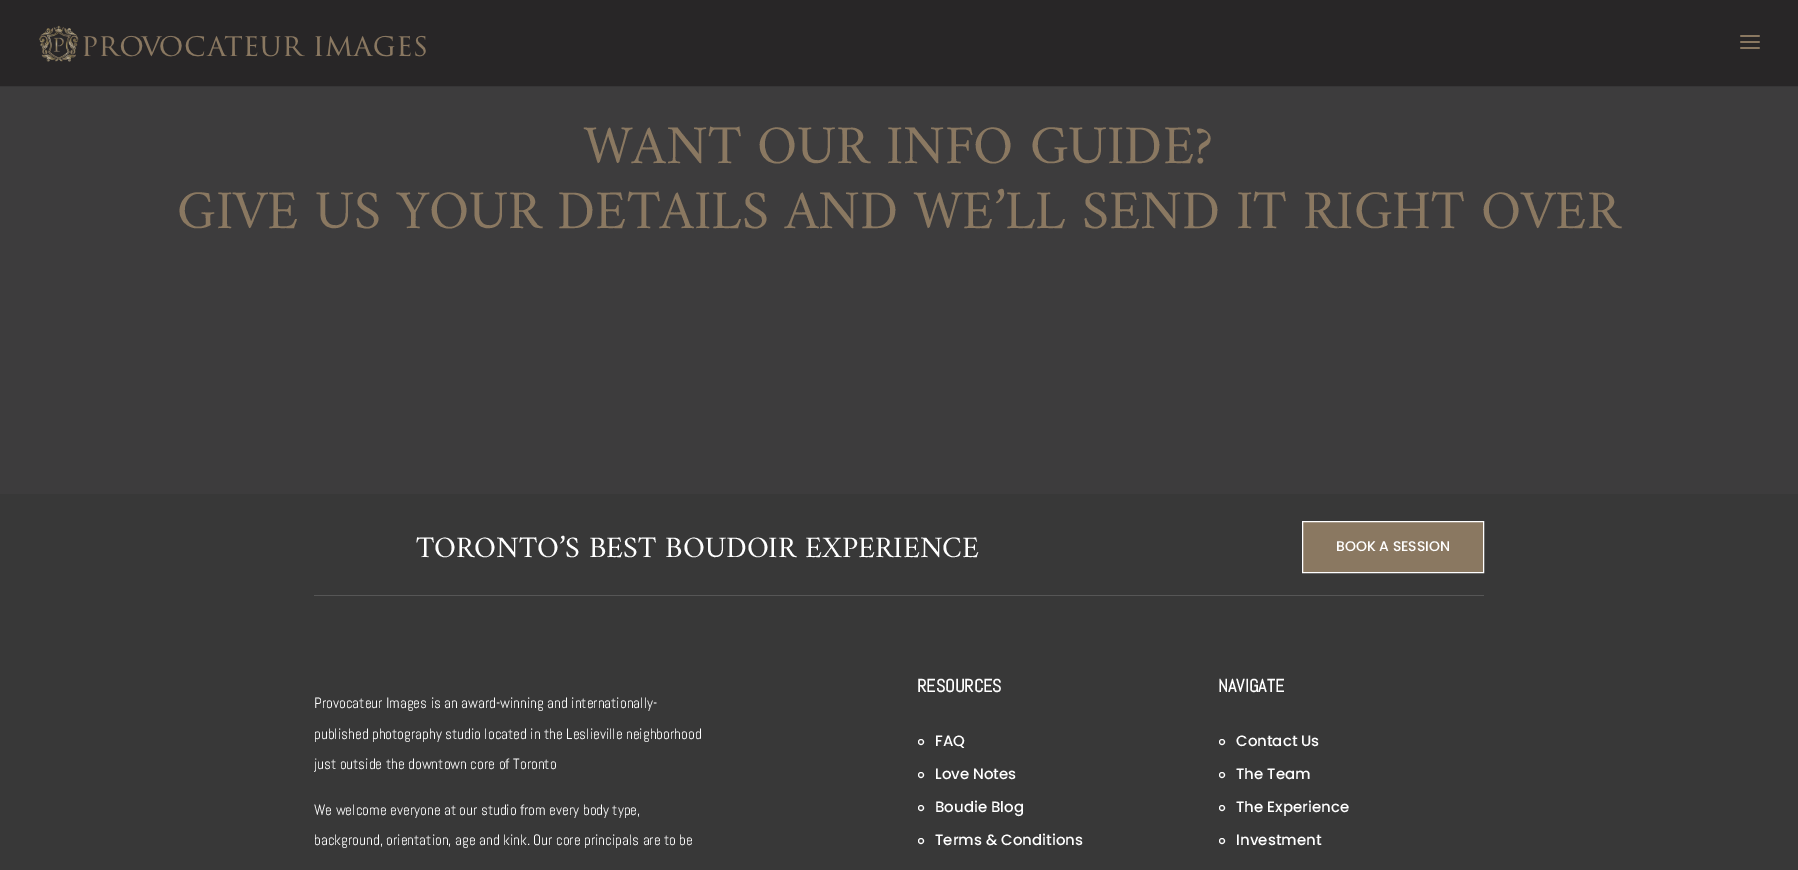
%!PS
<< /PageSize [1798 870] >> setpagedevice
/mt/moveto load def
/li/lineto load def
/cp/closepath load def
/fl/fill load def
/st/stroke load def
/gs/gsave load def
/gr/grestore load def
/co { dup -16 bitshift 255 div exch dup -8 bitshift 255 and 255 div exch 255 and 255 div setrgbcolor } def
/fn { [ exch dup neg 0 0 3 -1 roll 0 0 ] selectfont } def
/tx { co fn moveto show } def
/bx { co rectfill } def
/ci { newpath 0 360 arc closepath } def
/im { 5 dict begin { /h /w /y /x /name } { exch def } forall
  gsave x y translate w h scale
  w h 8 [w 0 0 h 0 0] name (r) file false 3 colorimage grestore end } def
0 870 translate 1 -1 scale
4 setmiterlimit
0 0 1798 870 16#3D3C3D bx
0 86 1798 1 16#373637 bx
0 0 1798 86 16#282627 bx
(media/1.raw) 39 25 387 37 im
(media/2.raw) 1740 35 20 14 im
0 494 1798 376 16#383838 bx
16#8A7861 co
1302.5 521.5 mt 1483.5 521.5 li 1483.5 572.5 li 1302.5 572.5 li cp gs fl gr
16#FFFFFF co
st
314 595 1170 1 16#565656 bx
16#FFFFFF co
921 742 2.5 ci st
921 775 2.5 ci st
921 808 2.5 ci st
921 841 2.5 ci st
1222 742 2.5 ci st
1222 775 2.5 ci st
1222 808 2.5 ci st
1222 841 2.5 ci st
(WANT OUR INFO GUIDE?) 584 163 /Amiri-Regular 55 16#8A7861 tx
(GIVE US YOUR DETAILS AND WE’LL SEND IT RIGHT OVER) 177 228 /Amiri-Regular 55 16#8A7861 tx
(TORONTO’S BEST BOUDOIR EXPERIENCE) 416 557 /Amiri-Regular 30 16#FFFFFF tx
(BOOK A SESSION) 1336 551 /Poppins-Medium 14 16#FFFFFF tx
(Provocateur Images is an award-winning and internationally-) 314 708 /Abel-Regular 15 16#FFFFFF tx
(published photography studio located in the Leslieville neighborhood) 314 739 /Abel-Regular 15 16#FFFFFF tx
(just outside the downtown core of Toronto) 314 769 /Abel-Regular 15 16#FFFFFF tx
(We welcome everyone at our studio from every body type,) 314 815 /Abel-Regular 15 16#FFFFFF tx
(background, orientation, age and kink. Our core principals are to be) 314 845 /Abel-Regular 15 16#FFFFFF tx
(RESOURCES) 917 692 /Abel-Bold 18 16#FFFFFF tx
(FAQ) 935 746 /Poppins-Medium 15 16#FFFFFF tx
(Love Notes) 935 779 /Poppins-Medium 15 16#FFFFFF tx
(Boudie Blog) 935 812 /Poppins-Medium 15 16#FFFFFF tx
(Terms & Conditions) 935 845 /Poppins-Medium 15 16#FFFFFF tx
(NAVIGATE) 1218 692 /Abel-Bold 18 16#FFFFFF tx
(Contact Us) 1236 746 /Poppins-Medium 15 16#FFFFFF tx
(The Team) 1236 779 /Poppins-Medium 15 16#FFFFFF tx
(The Experience) 1236 812 /Poppins-Medium 15 16#FFFFFF tx
(Investment) 1236 845 /Poppins-Medium 15 16#FFFFFF tx
showpage
